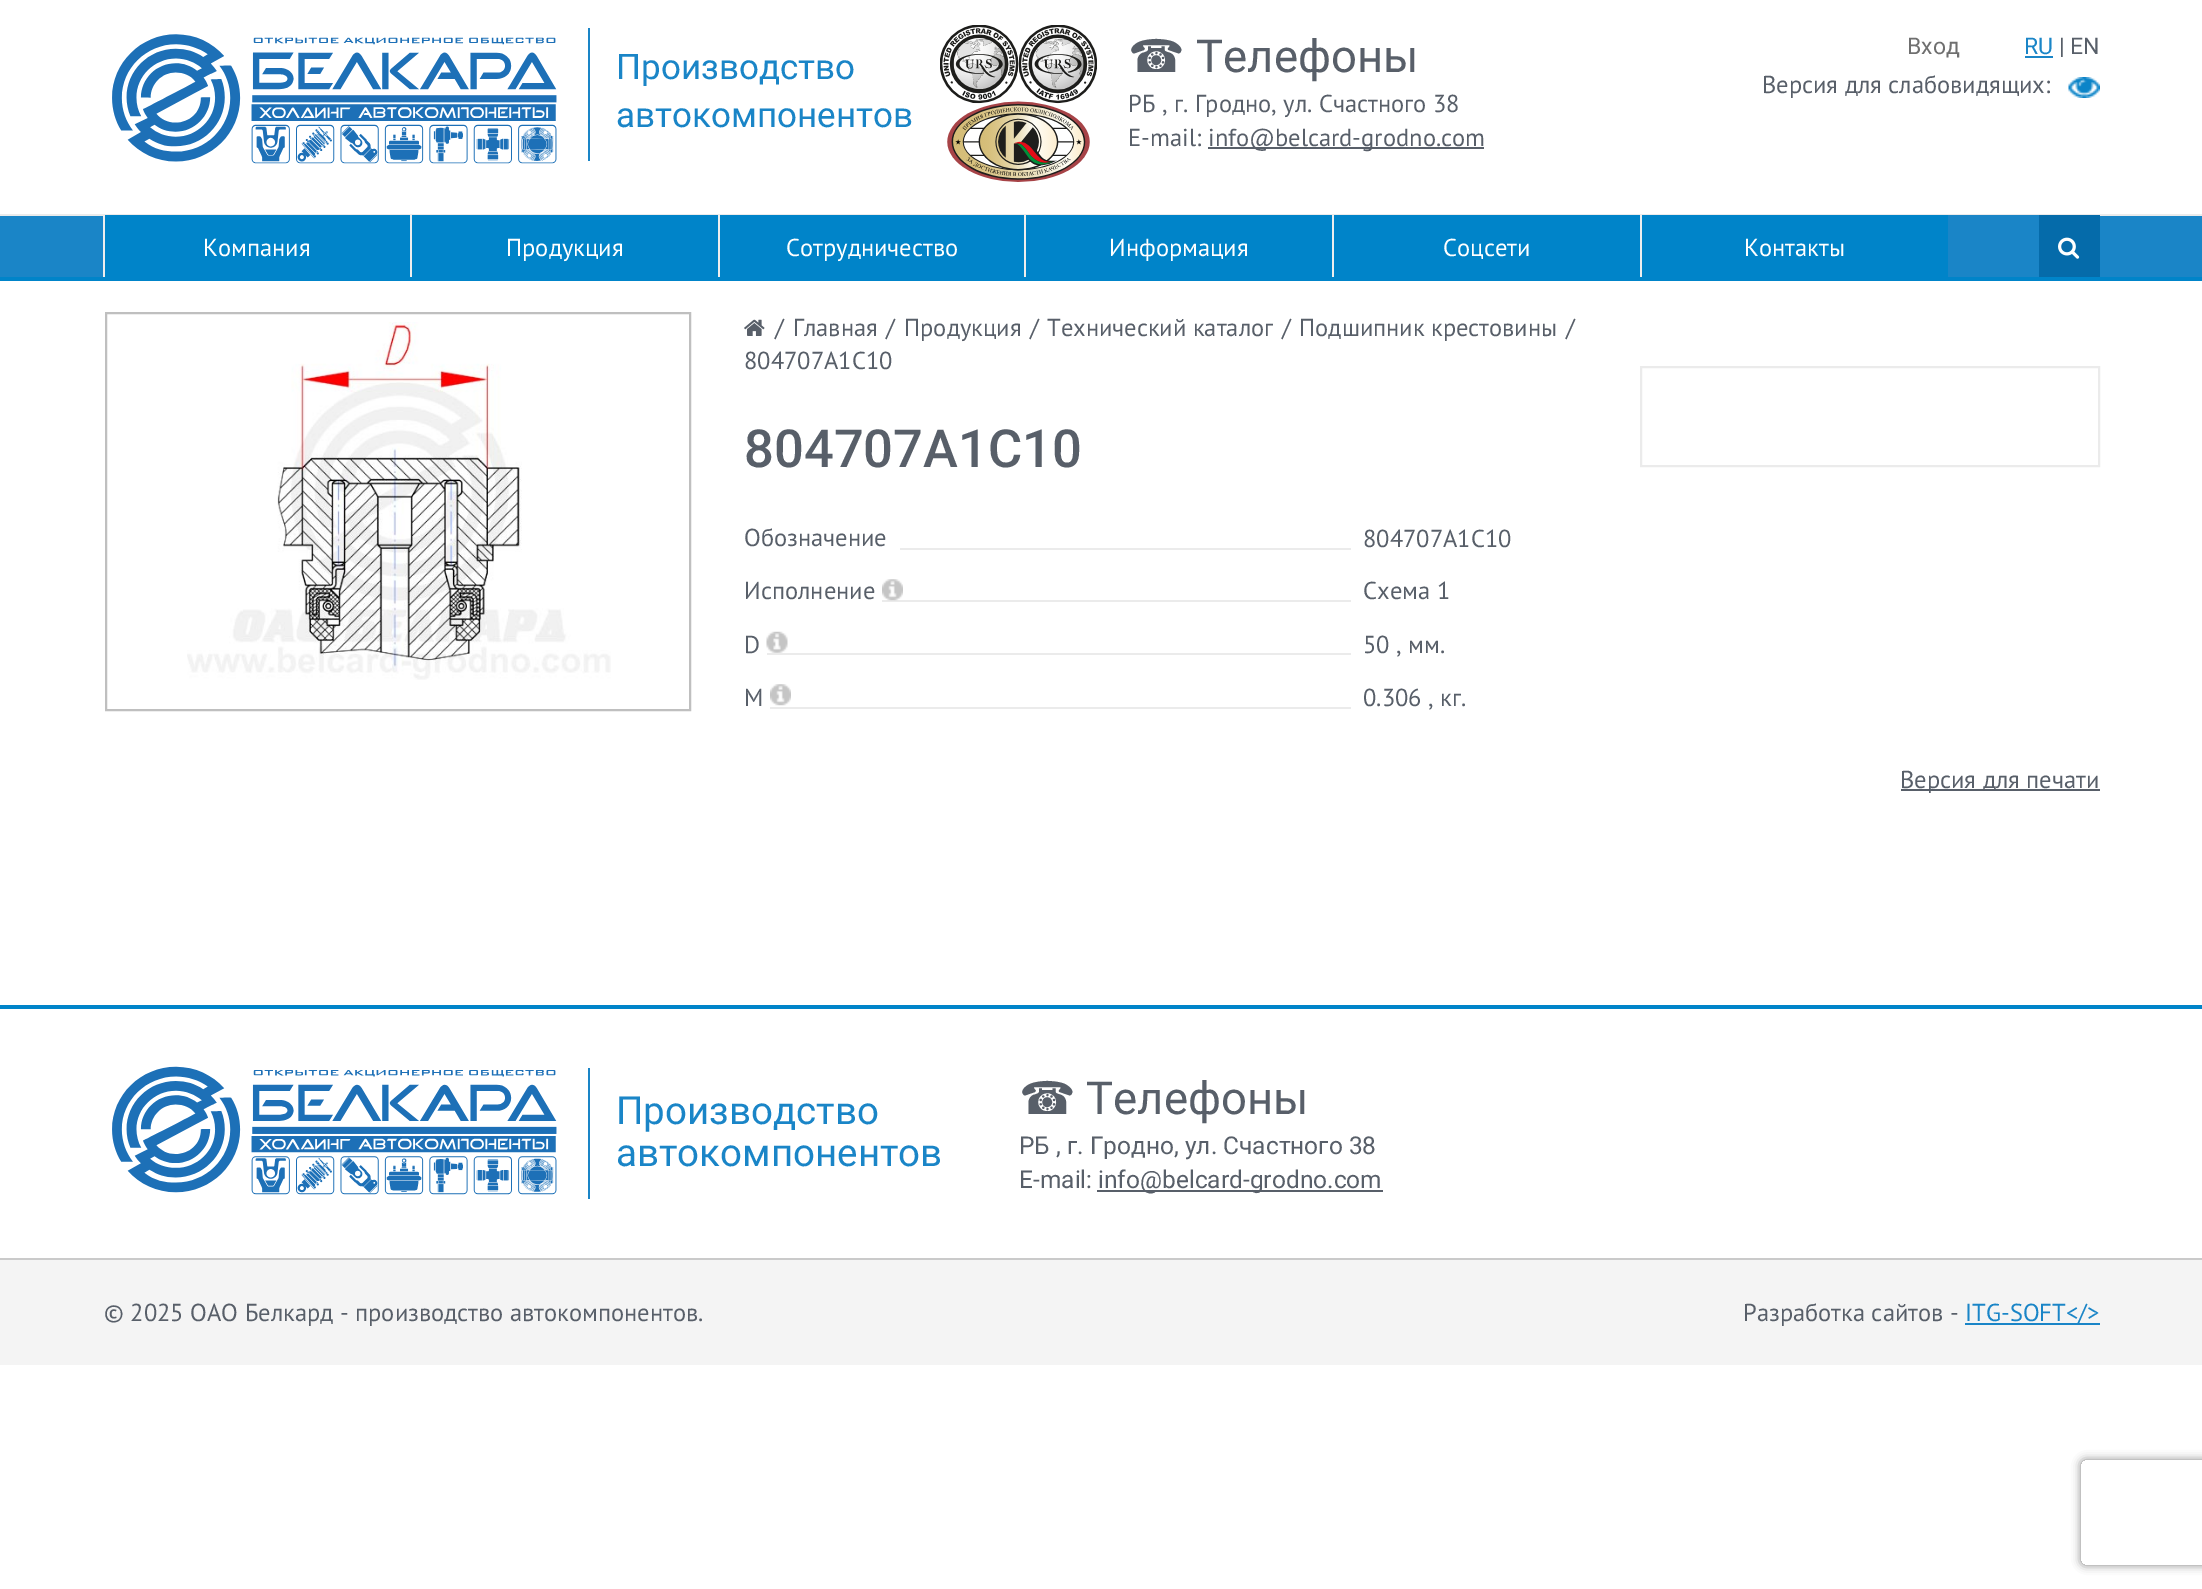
%!PS
<< /PageSize [2202 1589] /PageUsesTransparency true >> setpagedevice
/mt/moveto load def
/li/lineto load def
/ct/curveto load def
/cp/closepath load def
/gs/gsave load def
/gr/grestore load def
/lw/setlinewidth load def
/co { dup -16 bitshift 255 div exch dup -8 bitshift 255 and 255 div exch 255 and 255 div setrgbcolor } def
/fn { [ exch dup neg 0 0 3 -1 roll 0 0 ] selectfont } def
/tx { co fn moveto show } def
/bx { co rectfill } def
/al { dup .setfillconstantalpha .setstrokeconstantalpha } def
/rr { 5 dict begin { /r /h /w /y /x } { exch def } forall
  x r add y moveto x w add y 2 copy h add r arct x w add y h add x 1 index r arct
  x y h add x y r arct x y 2 copy exch w add exch r arct closepath end } def
/sh { 12 dict begin { /a /b /q /h /w /y /x } { exch def } forall gsave /was 0 def
  9 -2 -9 { dup b mul 4 div /e exch def 1 sub .425 mul 2.718 exch exp 1 add a .99 .min exch div /now exch def
    1 1 now sub 1 was sub div sub al /was now def
    w h .min e 2 mul add 0 gt { x e sub y e sub w e 2 mul add h e 2 mul add
      q e add b .6 mul add w h .min 2 div e add .min 0 .max rr fill } if } for grestore end } def
/im { 5 dict begin { /h /w /y /x /name } { exch def } forall
  gsave x y translate w h scale
  w h 8 [w 0 0 h 0 0] name (r) file false 3 colorimage grestore end } def
0 .pushpdf14devicefilter
0 1589 translate 1 -1 scale
4 setmiterlimit
0 0 2202 1589 16#FFFFFF bx
0 277 2202 4 16#0084C9 bx
(media/1.raw) 112 34 445 130 im
588 28 2 133 16#1A85C7 bx
(media/2.raw) 940 25 157 157 im
1208 147 276 2 16#585F69 bx
2025 56 28 2 16#1A85C7 bx
(media/3.raw) 2068 77 32 21 im
0 216 2202 61 16#1A85C7 bx
0 214 2202 2 16#EBEBEB bx
1948 215 91 1 16#1A85C7 bx
105 215 305 62 16#0084C9 bx
103 215 2 62 16#EEEEEE bx
412 215 306 62 16#0084C9 bx
410 215 2 62 16#EEEEEE bx
720 215 304 62 16#0084C9 bx
718 215 2 62 16#EEEEEE bx
1026 215 306 62 16#0084C9 bx
1024 215 2 62 16#EEEEEE bx
1334 215 306 62 16#0084C9 bx
1332 215 2 62 16#EEEEEE bx
1642 215 306 62 16#0084C9 bx
1640 215 2 62 16#EEEEEE bx
2039 215 61 62 16#056BAA bx
(media/4.raw) 2058 237 22 22 im
16#BFBFBF co
2 lw
106 313 584 397 rectstroke
(media/5.raw) 187 322 424 358 im
(media/6.raw) 744 319 21 17 im
900 548 453 2 16#EBEBEB bx
1351 548 2 2 16#FFFFFF bx
882 600 471 2 16#EBEBEB bx
(media/7.raw) 882 579 21 22 im
1351 600 2 2 16#FFFFFF bx
767 653 586 2 16#EBEBEB bx
(media/8.raw) 766 631 22 22 im
1351 653 2 2 16#FFFFFF bx
770 707 583 2 16#EBEBEB bx
(media/9.raw) 770 684 21 22 im
1351 707 2 2 16#FFFFFF bx
16#EBEBEB co
1641 367 458 99 rectstroke
1901 789 199 2 16#585F69 bx
0 1005 2202 4 16#0084C9 bx
(media/10.raw) 112 1066 445 129 im
588 1068 2 131 16#1A85C7 bx
1097 1190 286 2 16#585F69 bx
0 1260 2202 105 16#F4F4F4 bx
0 1258 2202 2 16#CACACA bx
1965 1323 135 2 16#1A85C7 bx
gs
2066 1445 mt 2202 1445 li 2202 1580 li 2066 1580 li cp 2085 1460 mt 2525 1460 li 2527 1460 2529 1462 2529 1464 ct 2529 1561 li 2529 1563 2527 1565 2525 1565 ct 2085 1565 li 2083 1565 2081 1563 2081 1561 ct 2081 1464 li 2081 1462 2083 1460 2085 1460 ct cp eoclip newpath
16#808080 co
2081 1460 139 105 4 4.5 1 sh
gr
(Производство) 616 79 /Roboto-Regular 35 16#1A85C7 tx
(автокомпонентов) 616 127 /Roboto-Regular 35 16#1A85C7 tx
(☎) 1128 72 /DejaVuSans-Regular 45.5 16#585F69 tx
(Телефоны) 1196 72 /Roboto-Regular 45.5 16#585F69 tx
(РБ , г. Гродно, ул. Счастного 38) 1128 112 /PTSans-Regular 24.5 16#585F69 tx
(E-mail:) 1128 146 /PTSans-Regular 24.5 16#585F69 tx
(info@belcard-grodno.com) 1208 146 /PTSans-Regular 24.5 16#585F69 tx
(Вход) 1907 54 /Roboto-Regular 23 16#6F6F6F tx
(RU) 2024 54 /Roboto-Regular 23 16#1A85C7 tx
(| EN) 2059 54 /Roboto-Regular 23 16#585F69 tx
(Версия для слабовидящих:) 1762 93 /PTSans-Regular 24.5 16#585F69 tx
(Компания) 203 256 /PTSans-Regular 24.5 16#FFFFFF tx
(Продукция) 506 256 /PTSans-Regular 24.5 16#FFFFFF tx
(Сотрудничество) 786 256 /PTSans-Regular 24.5 16#FFFFFF tx
(Информация) 1109 256 /PTSans-Regular 24.5 16#FFFFFF tx
(Соцсети) 1443 256 /PTSans-Regular 24.5 16#FFFFFF tx
(Контакты) 1744 256 /PTSans-Regular 24.5 16#FFFFFF tx
(/) 775 336 /PTSans-Regular 24.5 16#585F69 tx
(Главная) 793 336 /PTSans-Regular 24.5 16#585F69 tx
(/) 886 336 /PTSans-Regular 24.5 16#585F69 tx
(Продукция) 904 336 /PTSans-Regular 24.5 16#585F69 tx
(/) 1030 336 /PTSans-Regular 24.5 16#585F69 tx
(Технический каталог) 1047 336 /PTSans-Regular 24.5 16#585F69 tx
(/) 1282 336 /PTSans-Regular 24.5 16#585F69 tx
(Подшипник крестовины) 1299 336 /PTSans-Regular 24.5 16#585F69 tx
(/) 1566 336 /PTSans-Regular 24.5 16#585F69 tx
(804707А1С10) 744 369 /PTSans-Regular 24.5 16#585F69 tx
(804707А1С10) 744 467 /Roboto-Medium 52.5 16#585F69 tx
(Обозначение) 744 546 /PTSans-Regular 24.5 16#585F69 tx
(804707А1С10) 1363 547 /PTSans-Regular 24.5 16#585F69 tx
(Исполнение) 744 599 /PTSans-Regular 24.5 16#585F69 tx
(Схема 1) 1363 599 /PTSans-Regular 24.5 16#585F69 tx
(D) 744 653 /PTSans-Regular 24.5 16#585F69 tx
(50 , мм.) 1363 653 /PTSans-Regular 24.5 16#585F69 tx
(M) 744 706 /PTSans-Regular 24.5 16#585F69 tx
(0.306 , кг.) 1363 706 /PTSans-Regular 24.5 16#585F69 tx
(Версия для печати) 1900 788 /PTSans-Regular 24.5 16#585F69 tx
(Производство) 616 1124 /Roboto-Regular 38.5 16#1A85C7 tx
(автокомпонентов) 616 1166 /Roboto-Regular 38.5 16#1A85C7 tx
(☎) 1019 1114 /DejaVuSans-Regular 45.5 16#585F69 tx
(Телефоны) 1086 1114 /Roboto-Regular 45.5 16#585F69 tx
(РБ , г. Гродно, ул. Счастного 38) 1019 1154 /Roboto-Regular 24.5 16#585F69 tx
(E-mail:) 1019 1188 /Roboto-Regular 24.5 16#585F69 tx
(info@belcard-grodno.com) 1098 1188 /Roboto-Regular 24.5 16#585F69 tx
(© 2025 ОАО Белкард - производство автокомпонентов.) 104 1321 /PTSans-Regular 24.5 16#585F69 tx
(Разработка сайтов -) 1743 1321 /PTSans-Regular 24.5 16#585F69 tx
(ITG-SOFT</>) 1965 1321 /PTSans-Regular 24.5 16#1A85C7 tx
.poppdf14devicefilter showpage
